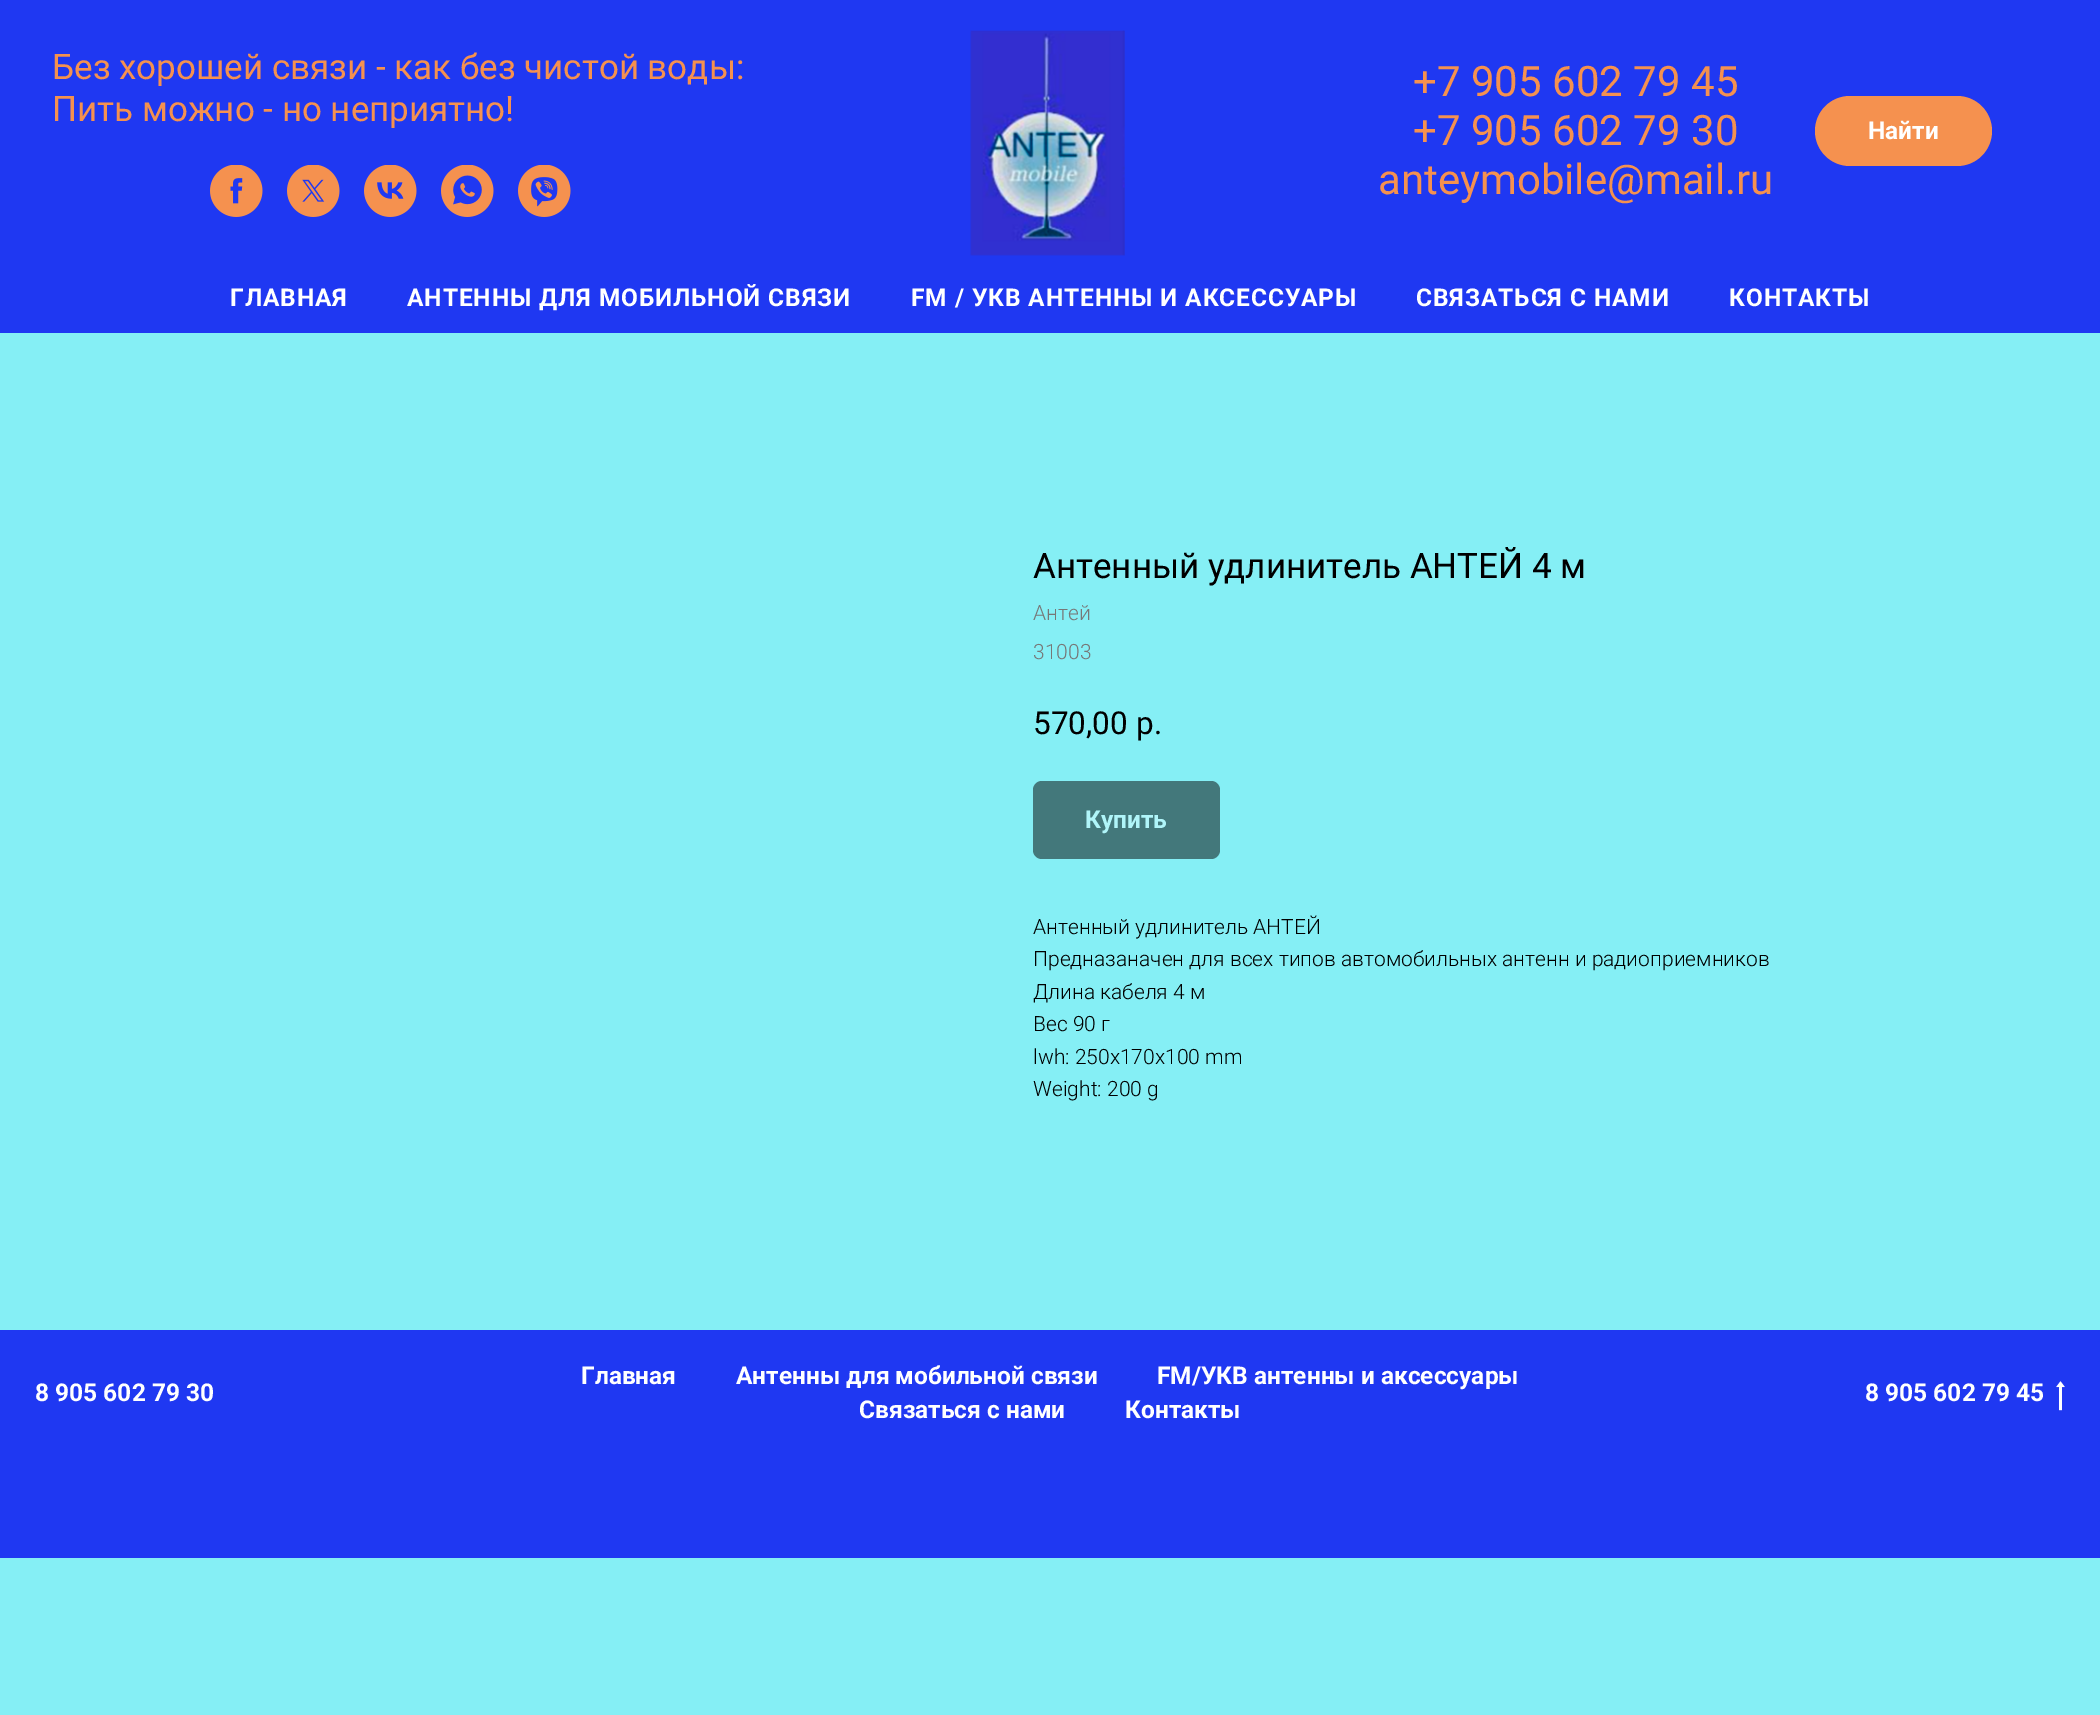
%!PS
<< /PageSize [2100 1715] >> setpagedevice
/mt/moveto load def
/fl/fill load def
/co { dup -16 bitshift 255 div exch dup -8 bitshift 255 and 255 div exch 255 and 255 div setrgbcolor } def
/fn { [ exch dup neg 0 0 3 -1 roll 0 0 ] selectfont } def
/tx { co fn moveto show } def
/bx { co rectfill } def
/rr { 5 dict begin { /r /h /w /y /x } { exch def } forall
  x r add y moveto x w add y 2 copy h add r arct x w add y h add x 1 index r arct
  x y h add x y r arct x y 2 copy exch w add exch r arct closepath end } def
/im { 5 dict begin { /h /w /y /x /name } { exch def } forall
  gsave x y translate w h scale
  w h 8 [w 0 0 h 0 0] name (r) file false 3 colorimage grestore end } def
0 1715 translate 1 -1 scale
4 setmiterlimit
0 0 2100 1715 16#85EFF5 bx
0 0 2100 333 16#1F38F2 bx
(media/1.raw) 970 30 155 226 im
(media/2.raw) 210 165 53 52 im
(media/3.raw) 287 165 53 52 im
(media/4.raw) 364 165 53 52 im
(media/5.raw) 441 165 53 52 im
(media/6.raw) 518 165 53 52 im
16#F5914F co
1815 96 177 70 35 rr fl
16#43787B co
1033 781 187 78 9 rr fl
0 1330 2100 228 16#1F38F2 bx
(media/7.raw) 2056 1381 9 30 im
(Без хорошей связи - как без чистой воды:) 52 79 /Roboto-Regular 35 16#F5914F tx
(Пить можно - но неприятно!) 52 121 /Roboto-Regular 35 16#F5914F tx
(+7 905 602 79 45) 1413 96 /Roboto-Regular 42 16#F5914F tx
(+7 905 602 79 30) 1413 145 /Roboto-Regular 42 16#F5914F tx
(anteymobile@mail.ru) 1378 194 /Roboto-Regular 42 16#F5914F tx
(Найти) 1868 139 /Roboto-Bold 24.5 16#FFFFFF tx
230 306 mt .9 0 (ГЛАВНАЯ) ashow
407 306 mt .9 0 (АНТЕННЫ ДЛЯ МОБИЛЬНОЙ СВЯЗИ) ashow
911 306 mt .9 0 (FM / УКВ АНТЕННЫ И АКСЕССУАРЫ) ashow
1416 306 mt .9 0 (СВЯЗАТЬСЯ С НАМИ) ashow
1729 306 mt .9 0 (КОНТАКТЫ) ashow
(Антенный удлинитель АНТЕЙ 4 м) 1033 578 /Roboto-Regular 35 16#000000 tx
(Антей) 1033 620 /Roboto-Light 21 16#777777 tx
(31003) 1033 659 /Roboto-Light 21 16#777777 tx
(570,00) 1033 734 /Roboto-Regular 31.5 16#000000 tx
(р.) 1136 734 /Roboto-Regular 31.5 16#000000 tx
(Купить) 1085 828 /Roboto-Bold 24.5 16#B0F5F9 tx
(Антенный удлинитель АНТЕЙ) 1033 934 /Roboto-Light 21 16#000000 tx
(Предназаначен для всех типов автомобильных антенн и радиоприемников) 1033 966 /Roboto-Light 21 16#000000 tx
(Длина кабеля 4 м) 1033 999 /Roboto-Light 21 16#000000 tx
(Вес 90 г) 1033 1031 /Roboto-Light 21 16#000000 tx
(lwh: 250x170x100 mm) 1033 1064 /Roboto-Light 21 16#000000 tx
(Weight: 200 g) 1033 1096 /Roboto-Light 21 16#000000 tx
(8 905 602 79 30) 35 1401 /Roboto-Bold 24.5 16#FFFFFF tx
(Главная) 581 1384 /Roboto-Bold 24.5 16#FFFFFF tx
(Антенны для мобильной связи) 736 1384 /Roboto-Bold 24.5 16#FFFFFF tx
(FM/УКВ антенны и аксессуары) 1157 1384 /Roboto-Bold 24.5 16#FFFFFF tx
(Связаться с нами) 859 1418 /Roboto-Bold 24.5 16#FFFFFF tx
(Контакты) 1125 1418 /Roboto-Bold 24.5 16#FFFFFF tx
(8 905 602 79 45) 1865 1401 /Roboto-Bold 24.5 16#FFFFFF tx
showpage
